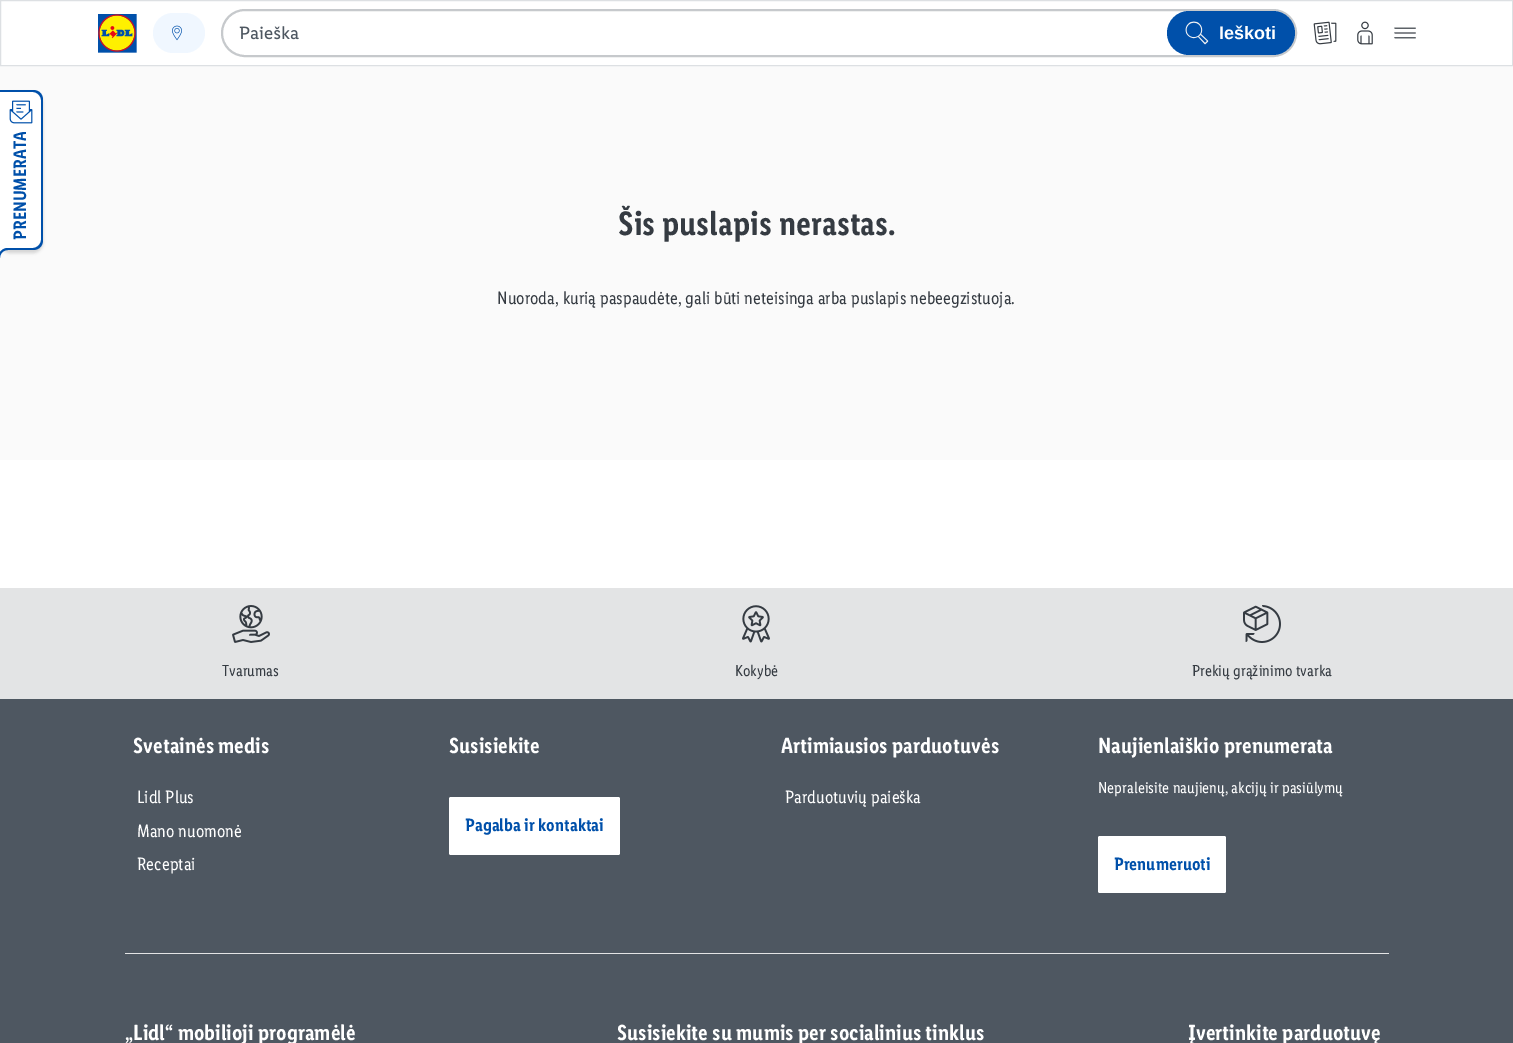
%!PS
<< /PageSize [1513 1043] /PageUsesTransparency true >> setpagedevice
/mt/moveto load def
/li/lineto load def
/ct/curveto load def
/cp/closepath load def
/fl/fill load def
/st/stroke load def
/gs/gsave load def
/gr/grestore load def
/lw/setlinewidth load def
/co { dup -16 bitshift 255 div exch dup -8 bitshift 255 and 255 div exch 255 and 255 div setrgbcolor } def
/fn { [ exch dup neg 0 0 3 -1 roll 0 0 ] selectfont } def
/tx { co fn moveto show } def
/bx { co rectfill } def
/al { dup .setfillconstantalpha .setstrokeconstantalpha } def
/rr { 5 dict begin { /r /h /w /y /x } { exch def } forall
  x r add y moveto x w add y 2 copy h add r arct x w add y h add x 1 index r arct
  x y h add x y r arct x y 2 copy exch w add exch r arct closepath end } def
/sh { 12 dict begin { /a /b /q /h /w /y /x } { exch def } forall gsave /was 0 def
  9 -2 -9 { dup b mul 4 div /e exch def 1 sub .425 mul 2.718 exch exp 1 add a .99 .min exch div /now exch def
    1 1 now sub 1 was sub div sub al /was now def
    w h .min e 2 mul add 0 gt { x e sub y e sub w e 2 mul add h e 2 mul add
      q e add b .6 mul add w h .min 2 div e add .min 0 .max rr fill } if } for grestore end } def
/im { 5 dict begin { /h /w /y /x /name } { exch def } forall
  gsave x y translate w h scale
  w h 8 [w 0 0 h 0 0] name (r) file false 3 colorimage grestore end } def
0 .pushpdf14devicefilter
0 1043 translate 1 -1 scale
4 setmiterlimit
0 0 1513 1043 16#FAFAFA bx
16#FFFFFF co
.5 .5 mt 1512.5 .5 li 1512.5 65.5 li .5 65.5 li cp gs fl gr
16#DDE0E3 co
st
(media/1.raw) 98 14 39 39 im
16#F0F7FF co
153 13 52 40 20 rr fl
(media/2.raw) 172 25 10 16 im
16#C6C9CC co
2 lw
222 10 1074 46 23 rr st
(media/3.raw) 239 26 60 14 im
16#0050AA co
1167 11 128 44 22 rr fl
(media/4.raw) 1185 21 24 24 im
(media/5.raw) 1313 21 24 24 im
(media/6.raw) 1357 21 16 24 im
(media/7.raw) 1394 27 22 12 im
0 460 1513 128 16#FFFFFF bx
16#000000 co
0 93 43 160 10 1.5 .15 sh
16#FFFFFF co
0 92 mt 33 92 li 37.5 92 41 95.5 41 100 ct 41 240 li 41 244.5 37.5 248 33 248 ct 0 248 li cp fl
16#0050AA co
0 90 mt 33 90 li 39 90 43 94 43 100 ct 43 240 li 43 246 39 250 33 250 ct 0 250 li cp 0 92 mt 33 92 li 37 92 41 96 41 100 ct 41 240 li 41 244 37 248 33 248 ct 0 248 li cp eofill
(media/8.raw) 9 100 24 24 im
16#FFFFFF co
8 238 mt 2.5 238 -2 242.5 -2 248 ct -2 254 li -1 254 li 1.5 247.5 8 248 14 248 ct 14 238 li cp fl
16#0050AA co
8 248 mt 14 248 li 14 264 li -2 264 li -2 258 li -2 252.5 2.5 248 8 248 ct cp 8 250 mt 14 250 li 14 264 li 0 264 li 0 258 li 0 253.5 3.5 250 8 250 ct cp eofill
0 588 1513 111 16#E3E4E5 bx
(media/9.raw) 232 605 38 38 im
(media/10.raw) 742 605 28 38 im
(media/11.raw) 1243 605 38 38 im
0 699 1513 344 16#4E5761 bx
125 953 1264 1 16#E3E4E5 bx
16#FFFFFF co
449 797 171 58 2 rr fl
1098 836 128 57 2 rr fl
(Ieškoti) 1219 39 /LiberationSans-Bold 18 16#FFFFFF tx
gs
8 132 25 108 rectclip
/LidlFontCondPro-SemiBold 18 fn
16#0050AA co
gs 26 240 translate -90 rotate 0 0 mt (PRENUMERATA) show gr
gr
(Tvarumas) 222 676 /LidlFontCondPro-Regular 16 16#353B42 tx
(Kokybė) 735 676 /LidlFontCondPro-Regular 16 16#353B42 tx
(Prekių grąžinimo tvarka) 1192 676 /LidlFontCondPro-Regular 16 16#353B42 tx
(Svetainės medis) 133 753 /LidlFontCondPro-SemiBold 22 16#FFFFFF tx
(Lidl Plus) 137 803 /LidlFontCondPro-Regular 18 16#FFFFFF tx
(Mano nuomonė) 137 837 /LidlFontCondPro-Regular 18 16#FFFFFF tx
(Receptai) 137 870 /LidlFontCondPro-Regular 18 16#FFFFFF tx
(Susisiekite) 449 753 /LidlFontCondPro-SemiBold 22 16#FFFFFF tx
(Pagalba ir kontaktai) 465 831 /LidlFontCondPro-SemiBold 18 16#0050AA tx
(Artimiausios parduotuvės) 781 753 /LidlFontCondPro-SemiBold 22 16#FFFFFF tx
(Parduotuvių paieška) 785 803 /LidlFontCondPro-Regular 18 16#FFFFFF tx
(Naujienlaiškio prenumerata) 1098 753 /LidlFontCondPro-SemiBold 22 16#FFFFFF tx
(Nepraleisite naujienų, akcijų ir pasiūlymų) 1098 793 /LidlFontCondPro-Regular 16 16#FFFFFF tx
(Prenumeruoti) 1114 870 /LidlFontCondPro-SemiBold 18 16#0050AA tx
(„Lidl“ mobilioji programėlė) 125 1040 /LidlFontCondPro-SemiBold 22 16#FFFFFF tx
(Susisiekite su mumis per socialinius tinklus) 617 1040 /LidlFontCondPro-SemiBold 22 16#FFFFFF tx
(Įvertinkite parduotuvę) 1188 1040 /LidlFontCondPro-SemiBold 22 16#FFFFFF tx
(Šis puslapis nerastas.) 618 235 /LidlFontCondPro-SemiBold 34 16#353B42 tx
(Nuoroda, kurią paspaudėte, gali būti neteisinga arba puslapis nebeegzistuoja.) 497 304 /LidlFontCondPro-Regular 18 16#353B42 tx
.poppdf14devicefilter showpage
